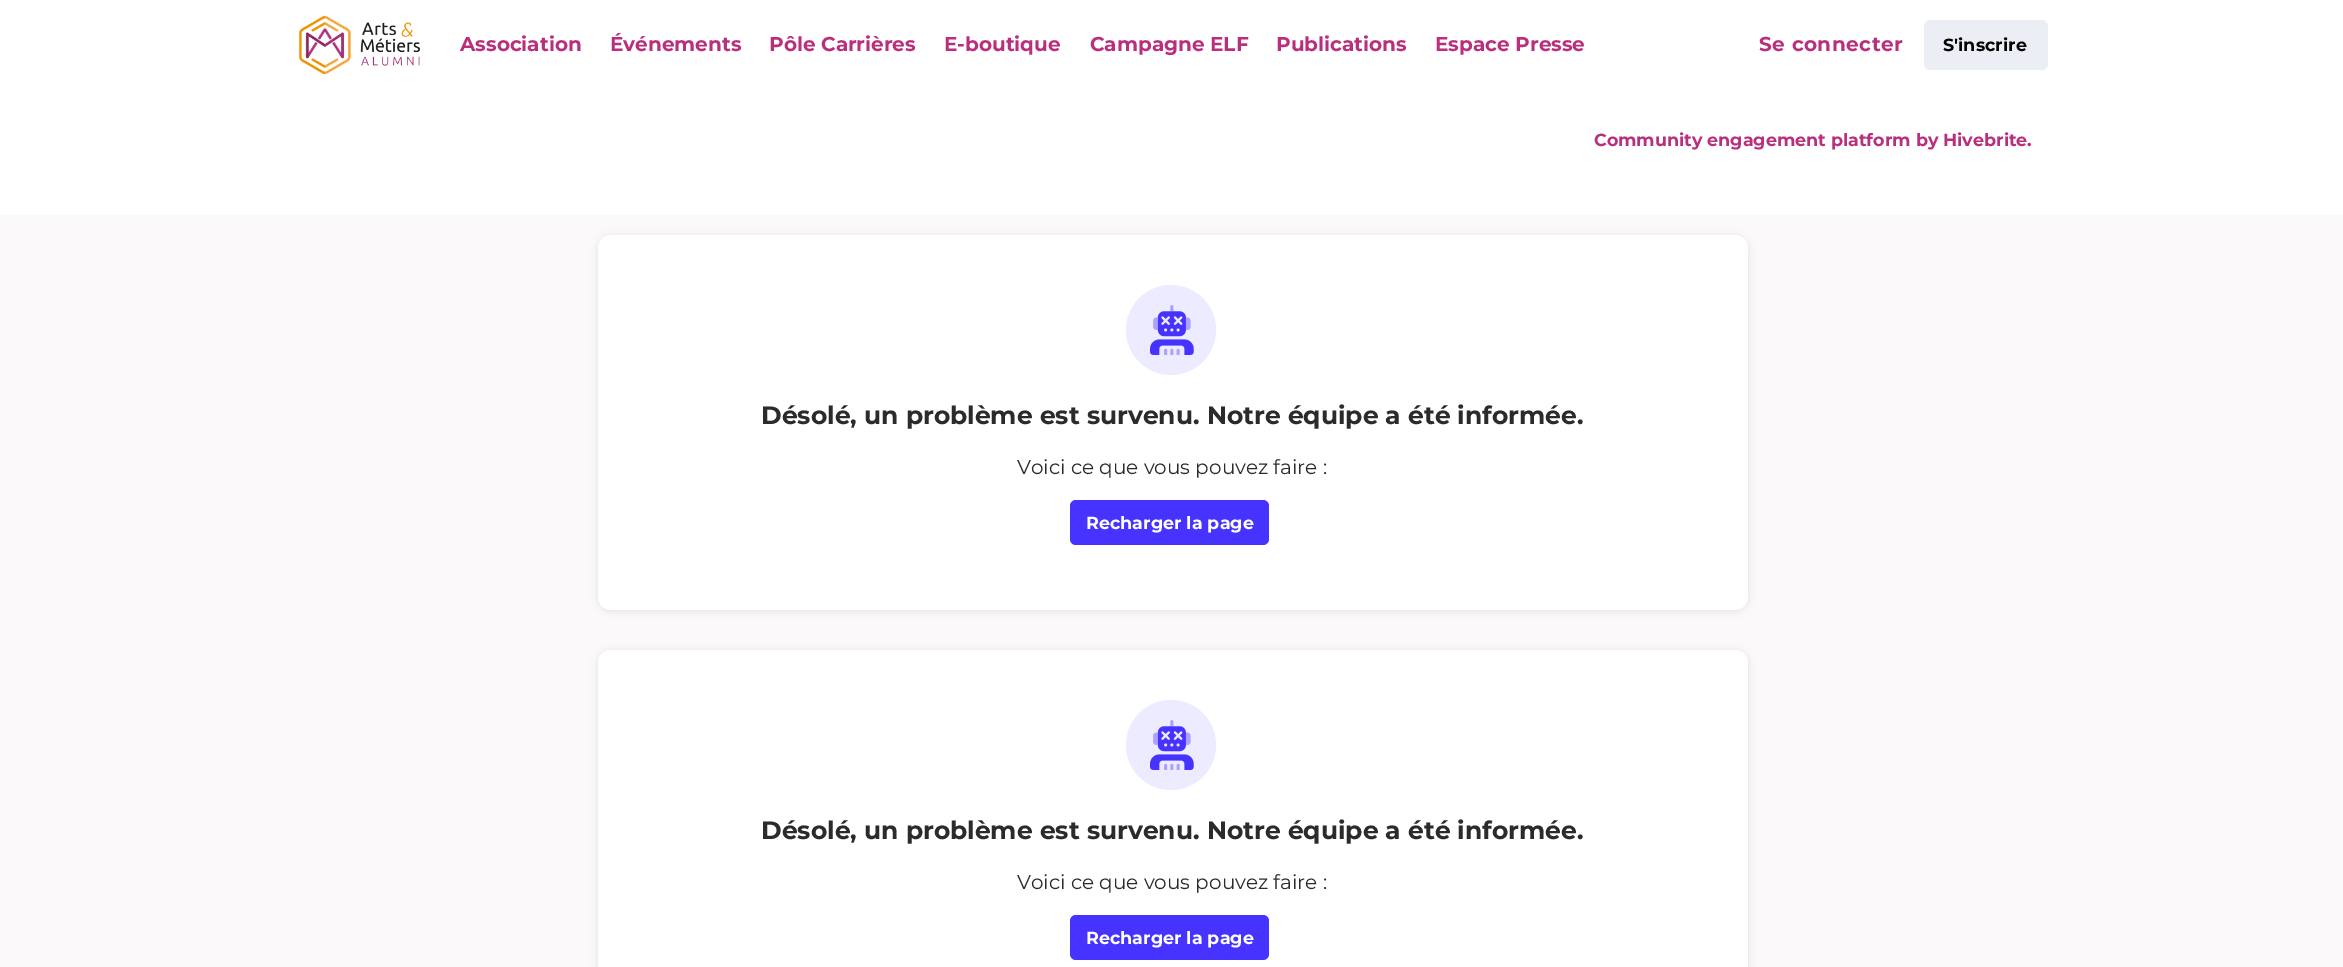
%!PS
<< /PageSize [2343 967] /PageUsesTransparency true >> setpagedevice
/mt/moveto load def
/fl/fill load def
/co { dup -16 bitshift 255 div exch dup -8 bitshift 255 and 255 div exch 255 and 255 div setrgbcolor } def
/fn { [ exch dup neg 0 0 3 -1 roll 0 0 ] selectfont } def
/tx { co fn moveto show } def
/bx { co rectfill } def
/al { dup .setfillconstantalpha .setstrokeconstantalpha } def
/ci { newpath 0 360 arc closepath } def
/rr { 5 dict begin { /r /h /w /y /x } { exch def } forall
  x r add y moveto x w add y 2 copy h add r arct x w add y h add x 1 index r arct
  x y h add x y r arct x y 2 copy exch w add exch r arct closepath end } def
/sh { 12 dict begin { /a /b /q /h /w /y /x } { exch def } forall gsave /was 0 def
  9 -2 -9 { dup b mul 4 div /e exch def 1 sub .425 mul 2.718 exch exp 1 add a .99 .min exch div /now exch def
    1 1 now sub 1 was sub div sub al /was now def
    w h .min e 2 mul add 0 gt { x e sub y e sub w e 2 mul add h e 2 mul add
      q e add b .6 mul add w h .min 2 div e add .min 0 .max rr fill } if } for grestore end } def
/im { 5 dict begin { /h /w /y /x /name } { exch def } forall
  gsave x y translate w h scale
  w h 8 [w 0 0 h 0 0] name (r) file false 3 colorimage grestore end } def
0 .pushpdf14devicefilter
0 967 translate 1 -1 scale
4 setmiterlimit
0 0 2343 967 16#FBF9F9 bx
0 0 2343 215 16#FFFFFF bx
(media/1.raw) 298 15 122 60 im
16#EBEEF4 co
1924 20 124 50 6 rr fl
16#000000 co
598 236 1150 375 13 4 .1 sh
16#FFFFFF co
598 235 1150 375 13 rr fl
16#EDEBFF co
1171 330 45 ci fl
(media/2.raw) 1150 305 44 50 im
16#4733FF co
1070 500 199 45 6 rr fl
16#000000 co
598 651 1150 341 13 4 .1 sh
16#FFFFFF co
598 650 1150 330 13 rr fl
16#EDEBFF co
1171 745 45 ci fl
(media/2.raw) 1150 720 44 50 im
16#4733FF co
1070 915 199 45 6 rr fl
(Association) 460 51 /Montserrat-Thin 20 16#B92F7D tx
(Événements) 610 51 /Montserrat-Thin 20 16#B92F7D tx
(Pôle Carrières) 769 51 /Montserrat-Thin 20 16#B92F7D tx
(E-boutique) 944 51 /Montserrat-Thin 20 16#B92F7D tx
(Campagne ELF) 1090 51 /Montserrat-Thin 20 16#B92F7D tx
(Publications) 1276 51 /Montserrat-Thin 20 16#B92F7D tx
(Espace Presse) 1435 51 /Montserrat-Thin 20 16#B92F7D tx
1759 51 mt .5 0 (Se connecter) ashow
(S'inscrire) 1943 51 /Montserrat-Thin 17.5 16#050505 tx
(Community engagement platform by Hivebrite.) 1594 146 /Montserrat-Thin 17.5 16#B92F7D tx
(Désolé, un problème est survenu. Notre équipe a été informée.) 761 424 /Montserrat-Thin 25 16#2B2B2B tx
(Voici ce que vous pouvez faire :) 1017 474 /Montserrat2-Thin 20 16#2B2B2B tx
(Recharger la page) 1086 529 /Montserrat-Thin 17.5 16#FFFFFF tx
(Désolé, un problème est survenu. Notre équipe a été informée.) 761 839 /Montserrat-Thin 25 16#2B2B2B tx
(Voici ce que vous pouvez faire :) 1017 889 /Montserrat2-Thin 20 16#2B2B2B tx
(Recharger la page) 1086 944 /Montserrat-Thin 17.5 16#FFFFFF tx
.poppdf14devicefilter showpage
